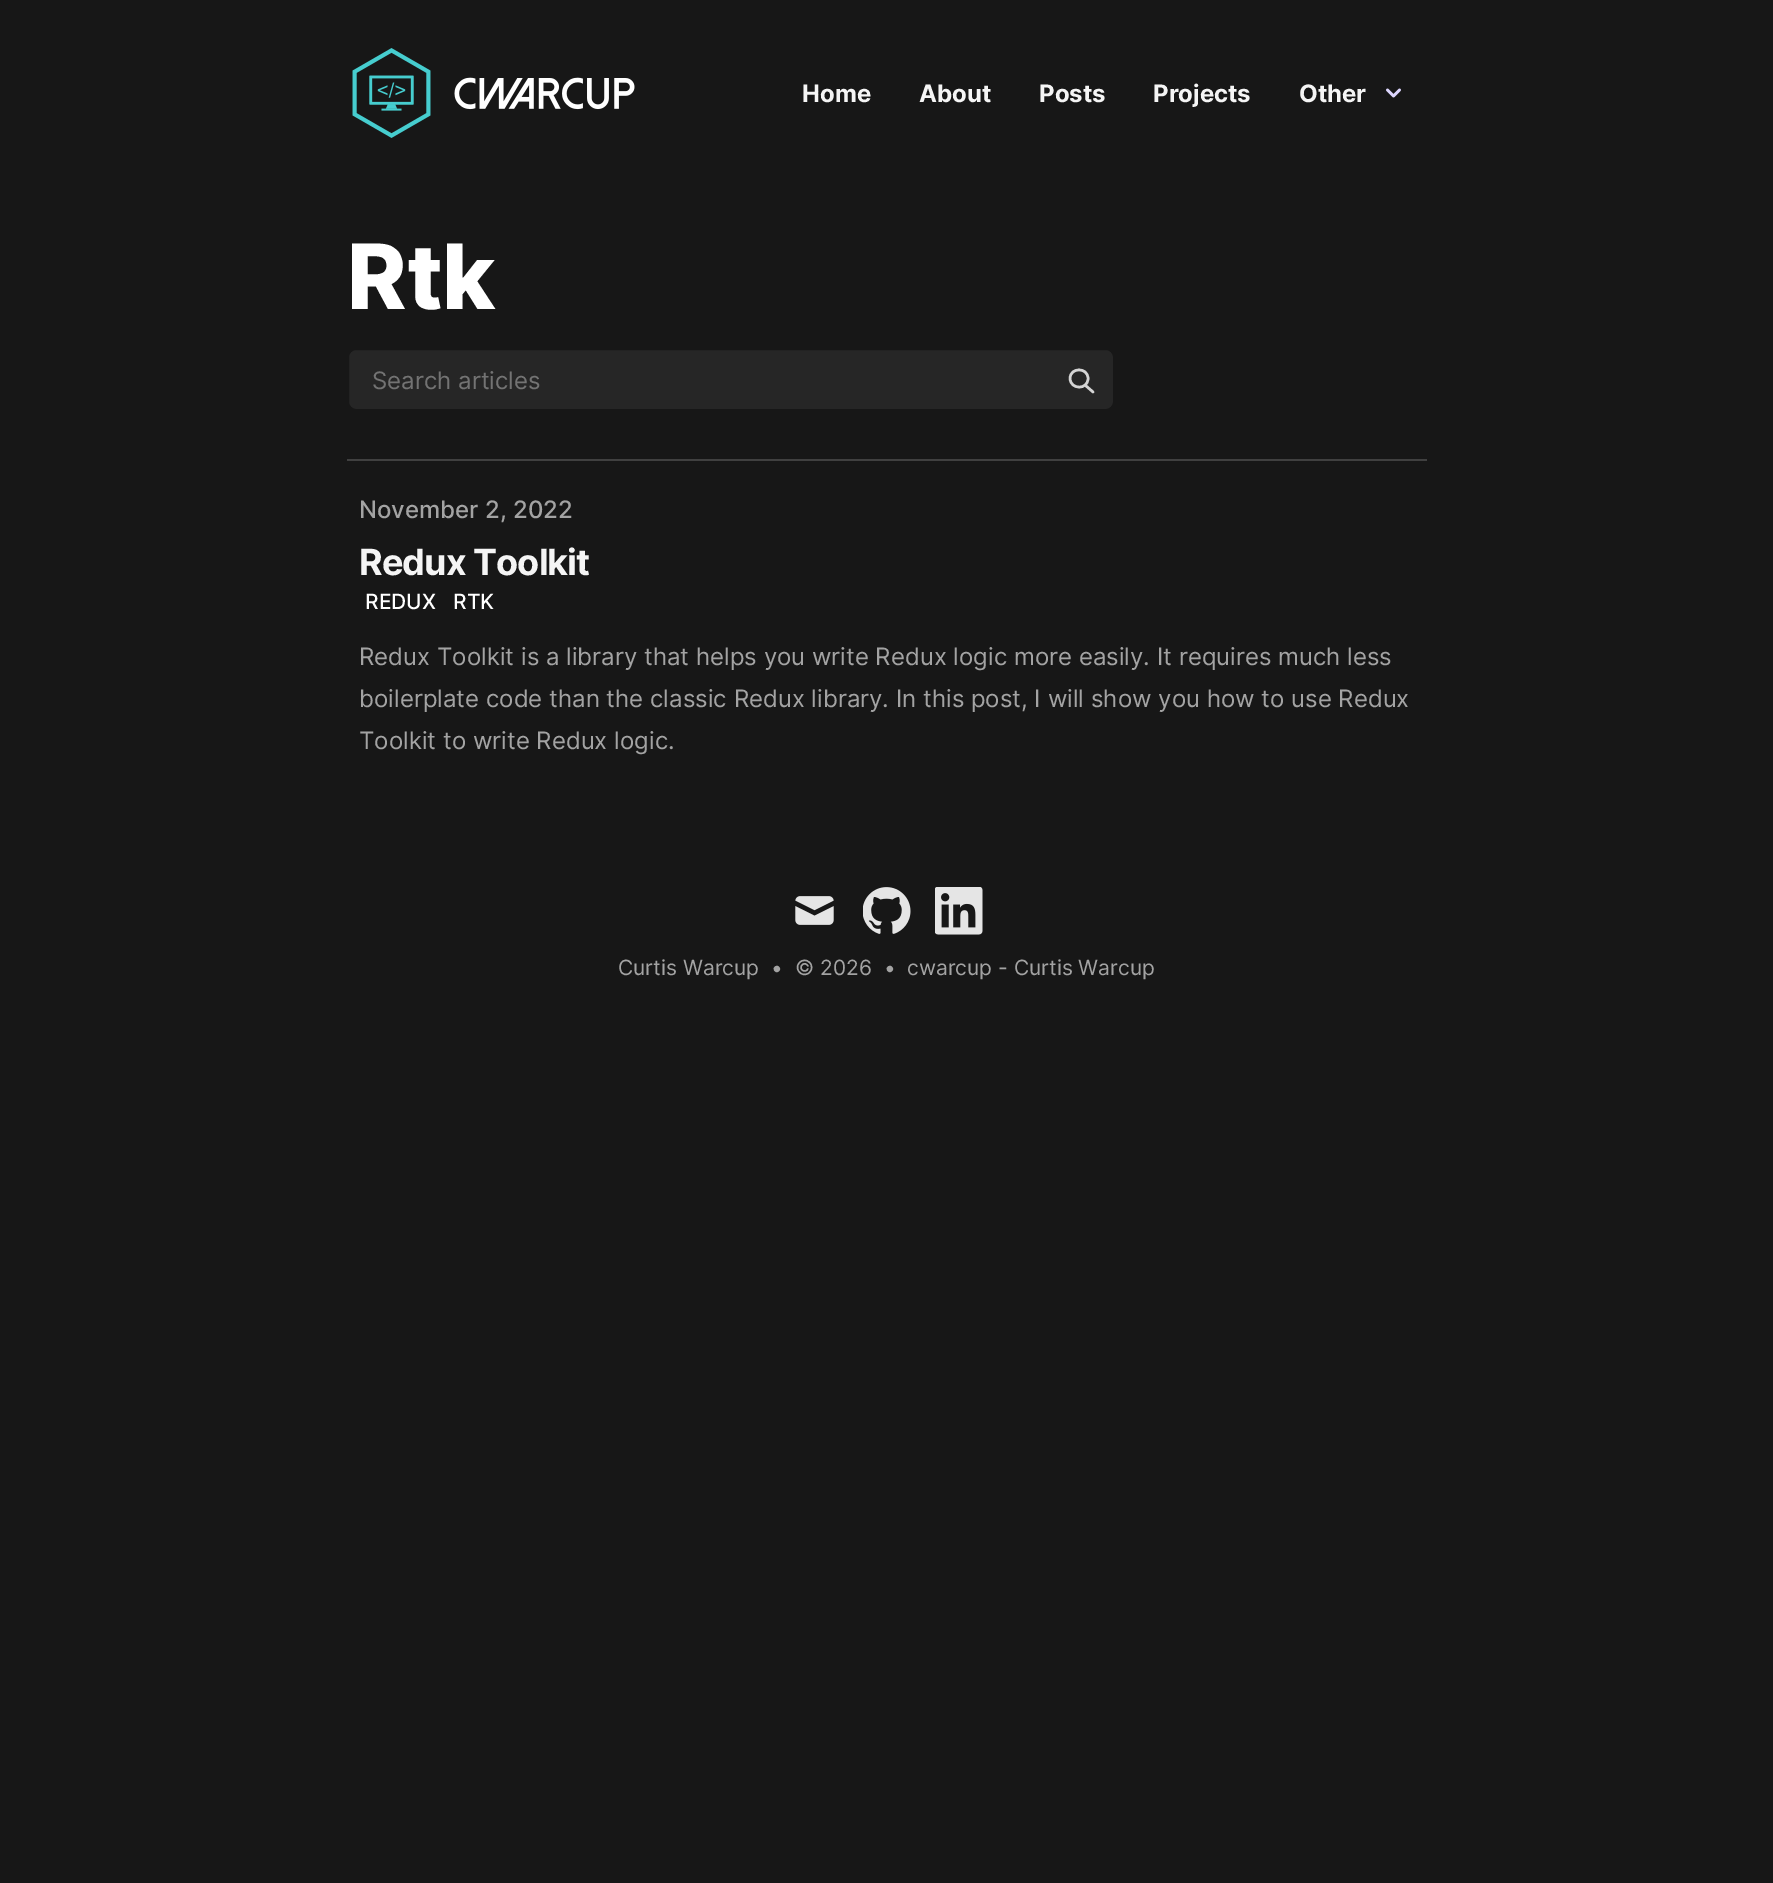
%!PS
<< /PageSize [1773 1883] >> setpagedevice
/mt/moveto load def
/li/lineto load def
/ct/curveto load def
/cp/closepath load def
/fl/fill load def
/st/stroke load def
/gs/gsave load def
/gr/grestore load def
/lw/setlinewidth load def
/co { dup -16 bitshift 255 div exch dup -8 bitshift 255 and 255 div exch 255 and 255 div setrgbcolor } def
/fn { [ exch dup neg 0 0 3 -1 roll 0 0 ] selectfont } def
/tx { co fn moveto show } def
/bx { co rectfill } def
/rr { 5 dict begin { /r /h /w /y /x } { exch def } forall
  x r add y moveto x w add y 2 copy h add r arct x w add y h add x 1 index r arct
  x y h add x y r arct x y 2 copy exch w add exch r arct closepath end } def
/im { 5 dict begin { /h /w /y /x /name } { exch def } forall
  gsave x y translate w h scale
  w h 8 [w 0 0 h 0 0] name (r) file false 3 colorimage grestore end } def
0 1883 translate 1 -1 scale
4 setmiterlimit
0 0 1773 1883 16#171717 bx
(media/1.raw) 352 48 283 90 im
(media/2.raw) 1386 88 15 10 im
16#262626 co
348 349 766 61 8 rr gs fl gr
16#171717 co
2 lw
st
16#D4D4D4 co
2.5 lw
1 setlinecap
1 setlinejoin
1093 392 mt 1085 385 li 1088 378.5 mt 1088 390 1070.5 390 1070 378.5 ct 1070 367 1088 367 1088 378.5 ct cp st
347 459 1080 2 16#404040 bx
(media/3.raw) 795 896 39 29 im
(media/4.raw) 863 887 48 47 im
(media/5.raw) 935 887 48 48 im
(Home) 802 102 /Inter-BoldItalic 24 16#F5F5F5 tx
(About) 919 102 /Inter-BoldItalic 24 16#F5F5F5 tx
(Posts) 1039 102 /Inter-BoldItalic 24 16#F5F5F5 tx
(Projects) 1153 102 /Inter-BoldItalic 24 16#F5F5F5 tx
(Other) 1299 102 /Inter-BoldItalic 24 16#F5F5F5 tx
(Rtk) 347 309 /Inter-ExtraBoldItalic 90 16#FFFFFF tx
(Search articles) 372 389 /Inter-Italic 24 16#737373 tx
(November 2, 2022) 359 518 /Inter-MediumItalic 24 16#A3A3A3 tx
/Inter-BoldItalic 36 fn
16#F5F5F5 co
359 575 mt -.9 0 (Redux Toolkit) ashow
(REDUX) 365 609 /Inter-MediumItalic 21 16#FFFFFF tx
(RTK) 453 609 /Inter-MediumItalic 21 16#FFFFFF tx
(Redux Toolkit is a library that helps you write Redux logic more easily. It requires much less) 359 665 /Inter-Italic 24 16#A3A3A3 tx
(boilerplate code than the classic Redux library. In this post, I will show you how to use Redux) 359 707 /Inter-Italic 24 16#A3A3A3 tx
(Toolkit to write Redux logic.) 359 749 /Inter-Italic 24 16#A3A3A3 tx
(Curtis Warcup) 618 975 /Inter-Italic 21 16#A3A3A3 tx
(•) 771 975 /Inter-Italic 21 16#A3A3A3 tx
(© 2026) 795 975 /Inter-Italic 21 16#A3A3A3 tx
(•) 884 975 /Inter-Italic 21 16#A3A3A3 tx
(cwarcup - Curtis Warcup) 907 975 /Inter-Italic 21 16#A3A3A3 tx
showpage
